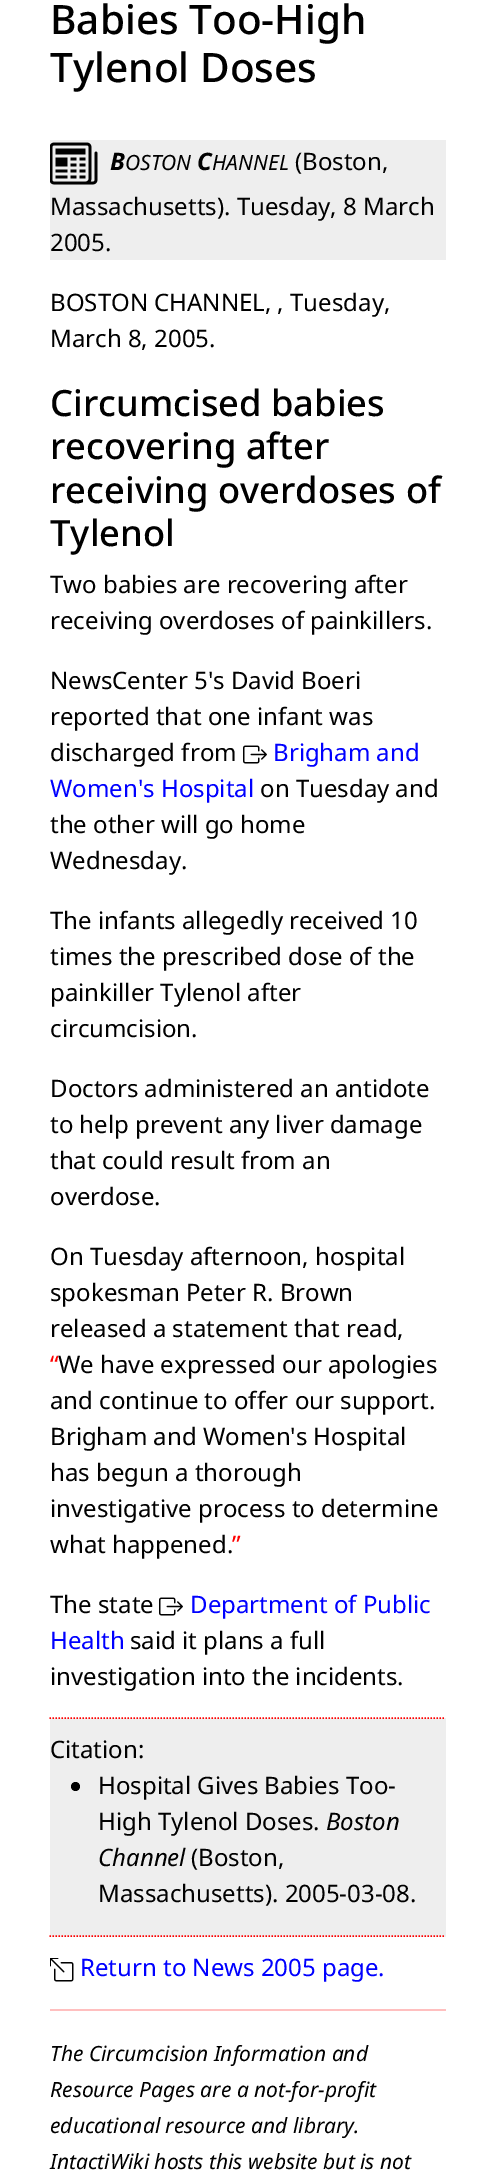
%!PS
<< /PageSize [494 2177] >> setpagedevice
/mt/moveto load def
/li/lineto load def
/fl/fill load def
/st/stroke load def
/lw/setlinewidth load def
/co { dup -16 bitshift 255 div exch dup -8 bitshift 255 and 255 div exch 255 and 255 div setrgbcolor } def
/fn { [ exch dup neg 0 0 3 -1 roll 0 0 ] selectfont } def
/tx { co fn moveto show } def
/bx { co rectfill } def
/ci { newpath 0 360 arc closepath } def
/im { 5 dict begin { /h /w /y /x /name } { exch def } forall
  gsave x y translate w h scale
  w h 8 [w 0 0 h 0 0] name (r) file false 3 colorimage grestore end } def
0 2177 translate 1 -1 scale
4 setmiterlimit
0 0 494 2177 16#FFFFFF bx
50 140 396 120 16#EEEEEE bx
(media/1.raw) 50 142 48 43 im
(media/2.raw) 243 745 24 19 im
(media/2.raw) 159 1597 24 19 im
50 1718 396 219 16#EEEEEE bx
16#FF0000 co
1.5 lw
[1.5 1.5] 0 setdash
49.5 1718 mt 445.5 1718 li st
49.5 1936 mt 445.5 1936 li st
16#000000 co
75.5 1786.5 4.5 ci fl
(media/3.raw) 50 1958 24 24 im
50 2009 396 2 16#FFBFBF bx
(Babies Too-High) 50 34 /NotoSans-Medium 40.5 16#000000 tx
(Tylenol Doses) 50 82 /NotoSans-Medium 40.5 16#000000 tx
(B) 110 170 /NotoSans-BoldItalic 24 16#000000 tx
(OSTON) 125 170 /NotoSans-Italic 21 16#000000 tx
(C) 197 170 /NotoSans-BoldItalic 24 16#000000 tx
(HANNEL) 212 170 /NotoSans-Italic 21 16#000000 tx
(\(Boston,) 295 170 /NotoSans-Regular 24 16#000000 tx
(Massachusetts\). Tuesday, 8 March) 50 215 /NotoSans-Regular 24 16#000000 tx
(2005.) 50 251 /NotoSans-Regular 24 16#000000 tx
(BOSTON CHANNEL, , Tuesday,) 50 311 /NotoSans-Regular 24 16#000000 tx
(March 8, 2005.) 50 347 /NotoSans-Regular 24 16#000000 tx
(Circumcised babies) 50 416 /NotoSans-Medium 36.25 16#000000 tx
(recovering after) 50 459 /NotoSans-Medium 36.25 16#000000 tx
(receiving overdoses of) 50 503 /NotoSans-Medium 36.25 16#000000 tx
(Tylenol) 50 546 /NotoSans-Medium 36.25 16#000000 tx
(Two babies are recovering after) 50 593 /NotoSans-Regular 24 16#000000 tx
(receiving overdoses of painkillers.) 50 629 /NotoSans-Regular 24 16#000000 tx
(NewsCenter 5's David Boeri) 50 689 /NotoSans-Regular 24 16#000000 tx
(reported that one infant was) 50 725 /NotoSans-Regular 24 16#000000 tx
(discharged from) 50 761 /NotoSans-Regular 24 16#000000 tx
(Brigham and) 273 761 /NotoSans-Regular 24 16#0000FF tx
(Women's Hospital) 50 797 /NotoSans-Regular 24 16#0000FF tx
(on Tuesday and) 260 797 /NotoSans-Regular 24 16#000000 tx
(the other will go home) 50 833 /NotoSans-Regular 24 16#000000 tx
(Wednesday.) 50 869 /NotoSans-Regular 24 16#000000 tx
(The infants allegedly received 10) 50 929 /NotoSans-Regular 24 16#000000 tx
(times the prescribed dose of the) 50 965 /NotoSans-Regular 24 16#000000 tx
(painkiller Tylenol after) 50 1001 /NotoSans-Regular 24 16#000000 tx
(circumcision.) 50 1037 /NotoSans-Regular 24 16#000000 tx
(Doctors administered an antidote) 50 1097 /NotoSans-Regular 24 16#000000 tx
(to help prevent any liver damage) 50 1133 /NotoSans-Regular 24 16#000000 tx
(that could result from an) 50 1169 /NotoSans-Regular 24 16#000000 tx
(overdose.) 50 1205 /NotoSans-Regular 24 16#000000 tx
(On Tuesday afternoon, hospital) 50 1265 /NotoSans-Regular 24 16#000000 tx
(spokesman Peter R. Brown) 50 1301 /NotoSans-Regular 24 16#000000 tx
(released a statement that read,) 50 1337 /NotoSans-Regular 24 16#000000 tx
(“) 50 1373 /NotoSans-Regular 24 16#FF0000 tx
(We have expressed our apologies) 58 1373 /NotoSans-Regular 24 16#000000 tx
(and continue to offer our support.) 50 1409 /NotoSans-Regular 24 16#000000 tx
(Brigham and Women's Hospital) 50 1445 /NotoSans-Regular 24 16#000000 tx
(has begun a thorough) 50 1481 /NotoSans-Regular 24 16#000000 tx
(investigative process to determine) 50 1517 /NotoSans-Regular 24 16#000000 tx
(what happened.) 50 1553 /NotoSans-Regular 24 16#000000 tx
(”) 232 1553 /NotoSans-Regular 24 16#FF0000 tx
(The state) 50 1613 /NotoSans-Regular 24 16#000000 tx
(Department of Public) 190 1613 /NotoSans-Regular 24 16#0000FF tx
(Health) 50 1649 /NotoSans-Regular 24 16#0000FF tx
(said it plans a full) 130 1649 /NotoSans-Regular 24 16#000000 tx
(investigation into the incidents.) 50 1685 /NotoSans-Regular 24 16#000000 tx
(Citation:) 50 1758 /NotoSans-Regular 24 16#000000 tx
(Hospital Gives Babies Too-) 98 1794 /NotoSans-Regular 24 16#000000 tx
(High Tylenol Doses.) 98 1830 /NotoSans-Regular 24 16#000000 tx
(Boston) 326 1830 /NotoSans-Italic 24 16#000000 tx
(Channel) 98 1866 /NotoSans-Italic 24 16#000000 tx
(\(Boston,) 191 1866 /NotoSans-Regular 24 16#000000 tx
(Massachusetts\). 2005-03-08.) 98 1902 /NotoSans-Regular 24 16#000000 tx
(Return to News 2005 page.) 80 1976 /NotoSans-Regular 24 16#0000FF tx
(The Circumcision Information and) 50 2061 /NotoSans-Italic 21 16#000000 tx
(Resource Pages are a not-for-profit) 50 2097 /NotoSans-Italic 21 16#000000 tx
(educational resource and library.) 50 2133 /NotoSans-Italic 21 16#000000 tx
(IntactiWiki hosts this website but is not) 50 2169 /NotoSans-Italic 21 16#000000 tx
showpage
